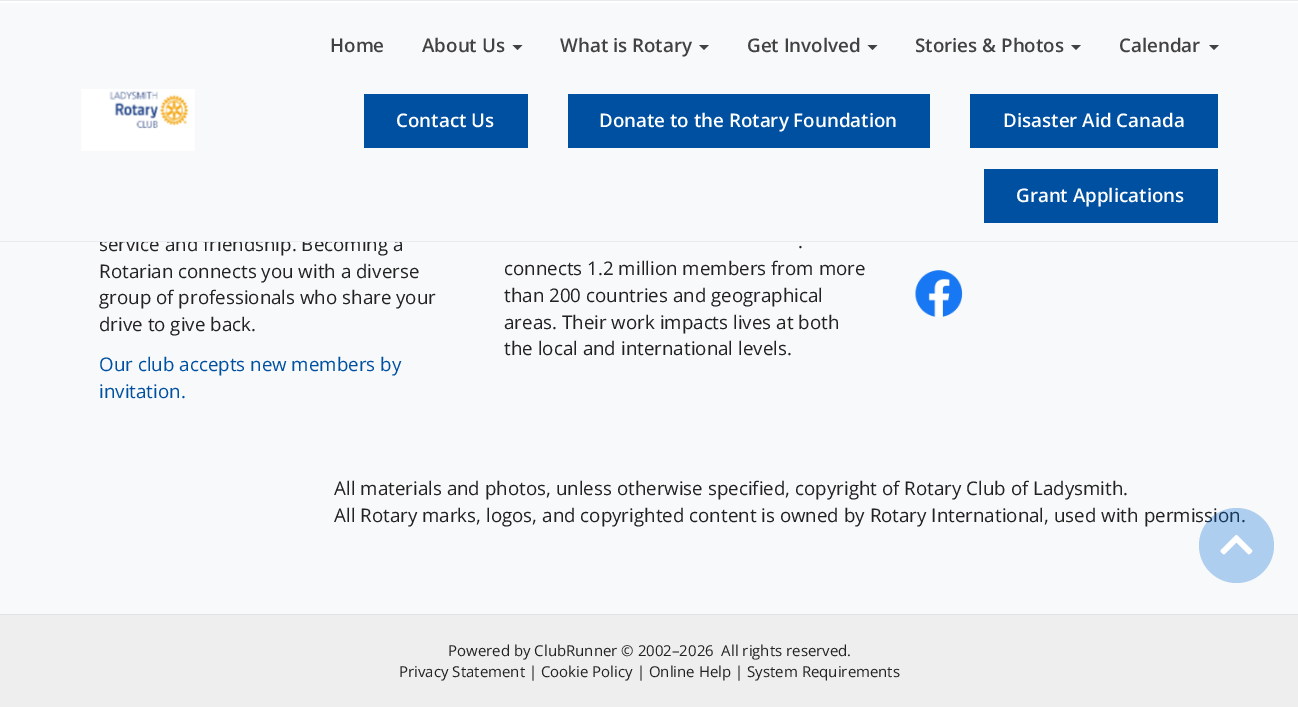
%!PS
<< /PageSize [1298 707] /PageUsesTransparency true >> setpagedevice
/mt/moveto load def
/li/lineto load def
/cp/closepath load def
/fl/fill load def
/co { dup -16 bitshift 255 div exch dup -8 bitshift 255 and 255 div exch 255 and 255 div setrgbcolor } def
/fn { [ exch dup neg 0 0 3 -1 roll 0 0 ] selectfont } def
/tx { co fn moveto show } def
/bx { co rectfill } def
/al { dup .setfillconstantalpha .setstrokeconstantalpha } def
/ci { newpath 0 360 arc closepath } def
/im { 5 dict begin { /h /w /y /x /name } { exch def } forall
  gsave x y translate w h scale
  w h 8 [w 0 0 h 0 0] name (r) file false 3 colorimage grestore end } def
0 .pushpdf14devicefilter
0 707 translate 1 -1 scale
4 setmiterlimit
0 0 1298 707 16#FFFFFF bx
0 0 1298 1 16#E9ECEF bx
0 615 1298 92 16#EEEEEE bx
0 242 1298 372 16#F8F9FA bx
0 614 1298 1 16#E0E2E5 bx
(media/2.raw) 915 270 48 47 im
(service and friendship. Becoming a) 99 251 /OpenSans-Regular 18.75 16#222222 tx
0 3 1298 238 16#F8F9FA bx
984 169 234 54 16#0050A2 bx
(Grant Applications) 1016 202 /OpenSans-SemiBold 18.75 16#FFFFFF tx
970 94 248 54 16#0050A2 bx
(Disaster Aid Canada) 1003 127 /OpenSans-SemiBold 18.75 16#FFFFFF tx
568 94 362 54 16#0050A2 bx
(Donate to the Rotary Foundation) 599 127 /OpenSans-SemiBold 18.75 16#FFFFFF tx
364 94 164 54 16#0050A2 bx
(Contact Us) 396 127 /OpenSans-SemiBold 18.75 16#FFFFFF tx
16#424242 co
1209 45 mt 1219 45 li 1214 50 li cp fl
(Calendar) 1119 52 /OpenSans-SemiBold 18.75 16#424242 tx
1071 45 mt 1081 45 li 1076 50 li cp fl
(Stories & Photos) 915 52 /OpenSans-SemiBold 18.75 16#424242 tx
867.5 45 mt 877.5 45 li 872.5 50 li cp fl
(Get Involved) 747 52 /OpenSans-SemiBold 18.75 16#424242 tx
699 45 mt 709 45 li 704 50 li cp fl
(What is Rotary) 560 52 /OpenSans-SemiBold 18.75 16#424242 tx
512.5 45 mt 522.5 45 li 517.5 50 li cp fl
(About Us) 422 52 /OpenSans-SemiBold 18.75 16#424242 tx
(Home) 330 52 /OpenSans-SemiBold 18.75 16#424242 tx
(media/1.raw) 81 89 114 62 im
0 241 1298 1 16#E9ECEF bx
(Rotarian connects you with a diverse) 99 278 /OpenSans-Regular 18.75 16#222222 tx
(group of professionals who share your) 99 304 /OpenSans-Regular 18.75 16#222222 tx
(drive to give back.) 99 331 /OpenSans-Regular 18.75 16#222222 tx
(Our club accepts new members by) 99 371 /OpenSans-Regular 18.75 16#0050A2 tx
(invitation.) 99 398 /OpenSans-Regular 18.75 16#0050A2 tx
(.) 798 248 /OpenSans-Regular 18.75 16#222222 tx
(connects 1.2 million members from more) 504 275 /OpenSans-Regular 18.75 16#222222 tx
(than 200 countries and geographical) 504 302 /OpenSans-Regular 18.75 16#222222 tx
(areas. Their work impacts lives at both) 504 329 /OpenSans-Regular 18.75 16#222222 tx
(the local and international levels.) 504 355 /OpenSans-Regular 18.75 16#222222 tx
(All materials and photos, unless otherwise specified, copyright of Rotary Club of Ladysmith.) 334 495 /OpenSans-Regular 18.75 16#222222 tx
(All Rotary marks, logos, and copyrighted content is owned by Rotary International, used with permission.) 334 522 /OpenSans-Regular 18.75 16#222222 tx
(Powered by ClubRunner © 2002–2026  All rights reserved.) 448 656 /OpenSans-Regular 15 16#222222 tx
(Privacy Statement | Cookie Policy | Online Help | System Requirements) 399 677 /OpenSans-Regular 15 16#222222 tx
0.3 al
16#0069D5 co
1236.5 545.5 37.5 ci fl
1 al
(media/3.raw) 1220 535 33 20 im
.poppdf14devicefilter showpage
